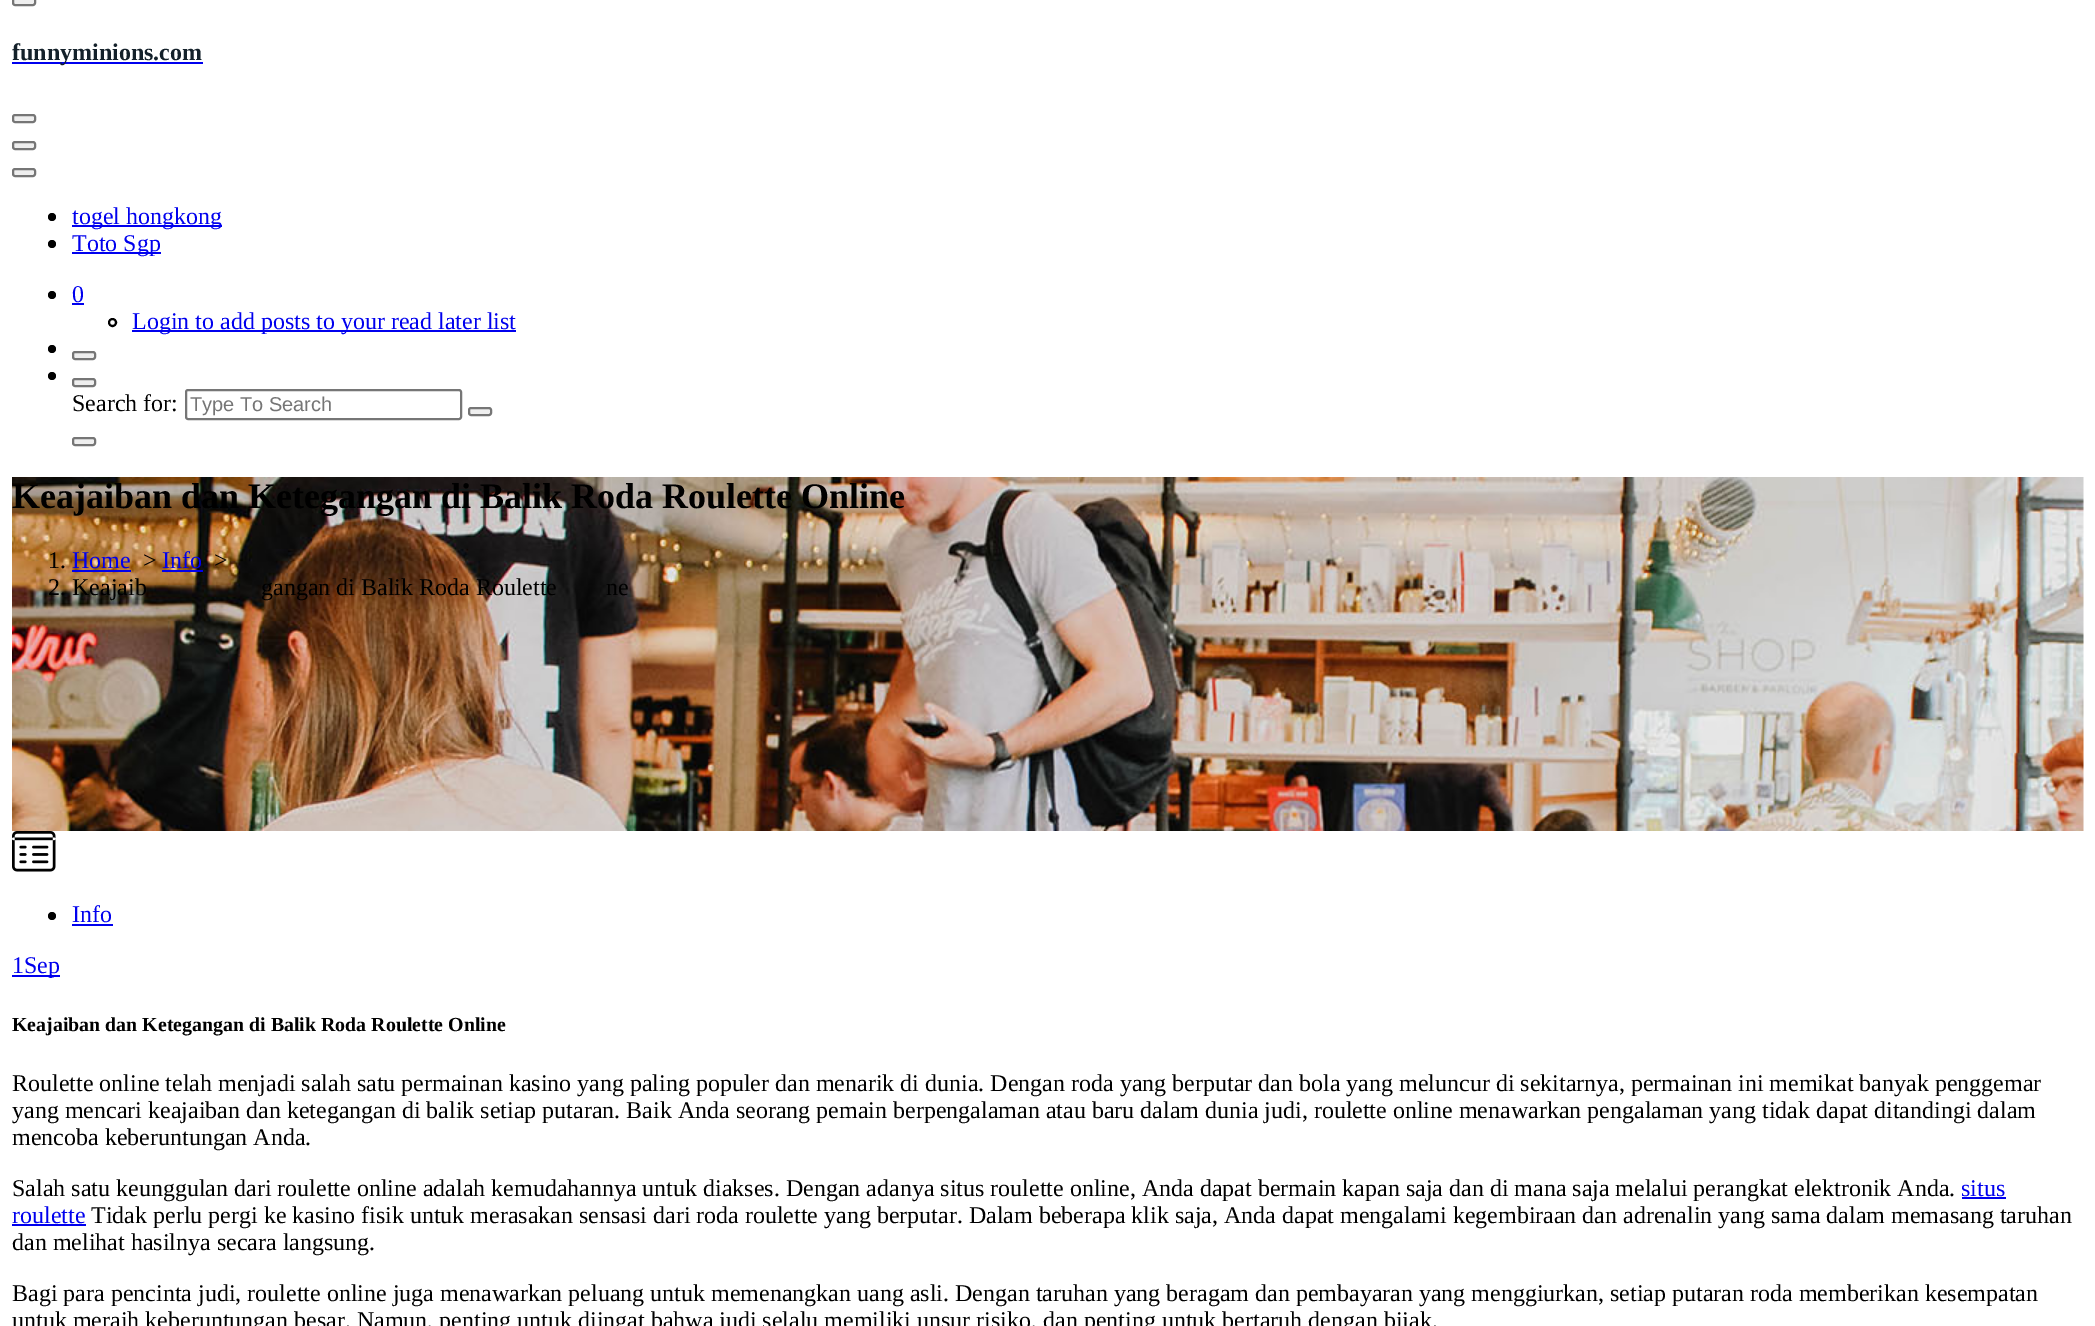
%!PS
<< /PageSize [2095 1326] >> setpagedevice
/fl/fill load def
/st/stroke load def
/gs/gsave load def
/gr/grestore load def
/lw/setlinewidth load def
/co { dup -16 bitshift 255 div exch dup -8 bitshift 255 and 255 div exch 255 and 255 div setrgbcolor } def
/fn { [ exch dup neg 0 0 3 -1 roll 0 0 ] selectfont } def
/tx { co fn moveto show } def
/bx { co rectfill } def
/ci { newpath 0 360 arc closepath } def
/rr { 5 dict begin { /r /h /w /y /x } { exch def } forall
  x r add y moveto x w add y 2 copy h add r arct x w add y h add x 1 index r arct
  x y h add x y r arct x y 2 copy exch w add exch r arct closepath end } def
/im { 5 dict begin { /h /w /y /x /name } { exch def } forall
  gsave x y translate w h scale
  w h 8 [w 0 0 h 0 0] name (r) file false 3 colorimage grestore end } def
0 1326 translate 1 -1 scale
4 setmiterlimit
0 0 2095 1326 16#FFFFFF bx
16#EFEFEF co
13 -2 22 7 2 rr gs fl gr
16#767676 co
2 lw
st
12 62 191 2 16#0000EE bx
16#EFEFEF co
13 115 22 7 2 rr gs fl gr
16#767676 co
st
16#EFEFEF co
13 142 22 7 2 rr gs fl gr
16#767676 co
st
16#EFEFEF co
13 169 22 7 2 rr gs fl gr
16#767676 co
st
16#000000 co
52 217 4 ci fl
72 225 150 2 16#0000EE bx
16#000000 co
52 244 4 ci fl
72 252 89 2 16#0000EE bx
16#000000 co
52 295 4 ci fl
72 303 12 2 16#0000EE bx
16#000000 co
112.5 322.5 3.5 ci st
132 330 384 2 16#0000EE bx
16#000000 co
52 349 4 ci fl
16#EFEFEF co
73 352 22 7 2 rr gs fl gr
16#767676 co
st
16#000000 co
52 376 4 ci fl
16#EFEFEF co
73 379 22 7 2 rr gs fl gr
16#767676 co
st
186 390 275 29 2 rr st
16#EFEFEF co
469 408 22 7 2 rr gs fl gr
16#767676 co
st
16#EFEFEF co
73 438 22 7 2 rr gs fl gr
16#767676 co
st
(media/1.raw) 12 477 2072 354 im
72 570 59 2 16#0000EE bx
162 570 41 2 16#0000EE bx
(media/2.raw) 12 831 44 41 im
16#000000 co
52 916 4 ci fl
72 924 41 2 16#0000EE bx
12 975 48 2 16#0000EE bx
1962 1197 44 2 16#0000EE bx
12 1224 74 2 16#0000EE bx
(funnyminions.com) 12 60 /LiberationSerif-Bold 24 16#14212A tx
(togel hongkong) 72 224 /LiberationSerif-Regular 24 16#0000EE tx
(Toto Sgp) 72 251 /LiberationSerif-Regular 24 16#0000EE tx
(0) 72 302 /LiberationSerif-Regular 24 16#0000EE tx
(Login to add posts to your read later list) 132 329 /LiberationSerif-Regular 24 16#0000EE tx
(Search for:) 72 411 /LiberationSerif-Regular 24 16#000000 tx
(Type To Search) 190 411 /LiberationSans-Regular 20 16#757575 tx
(Keajaiban dan Ketegangan di Balik Roda Roulette Online) 12 508 /LiberationSerif-Bold 36 16#000000 tx
(1.) 48 568 /LiberationSerif-Regular 24 16#000000 tx
(Home) 72 568 /LiberationSerif-Regular 24 16#0000EE tx
(>) 143 568 /LiberationSerif-Regular 24 16#000000 tx
(Info) 162 568 /LiberationSerif-Regular 24 16#0000EE tx
(>) 214 568 /LiberationSerif-Regular 24 16#000000 tx
(2. Keajaib) 48 595 /LiberationSerif-Regular 24 16#000000 tx
(gangan di Balik Roda Roulette) 261 595 /LiberationSerif-Regular 24 16#000000 tx
(ne) 606 595 /LiberationSerif-Regular 24 16#000000 tx
(Info) 72 922 /LiberationSerif-Regular 24 16#0000EE tx
(1Sep) 12 973 /LiberationSerif-Regular 24 16#0000EE tx
(Keajaiban dan Ketegangan di Balik Roda Roulette Online) 12 1031 /LiberationSerif-Bold 19.9 16#000000 tx
(Roulette online telah menjadi salah satu permainan kasino yang paling populer dan menarik di dunia. Dengan roda yang berputar dan bola yang meluncur di sekitarnya, permainan ini memikat banyak penggemar) 12 1091 /LiberationSerif-Regular 24 16#000000 tx
(yang mencari keajaiban dan ketegangan di balik setiap putaran. Baik Anda seorang pemain berpengalaman atau baru dalam dunia judi, roulette online menawarkan pengalaman yang tidak dapat ditandingi dalam) 12 1118 /LiberationSerif-Regular 24 16#000000 tx
(mencoba keberuntungan Anda.) 12 1145 /LiberationSerif-Regular 24 16#000000 tx
(Salah satu keunggulan dari roulette online adalah kemudahannya untuk diakses. Dengan adanya situs roulette online, Anda dapat bermain kapan saja dan di mana saja melalui perangkat elektronik Anda.) 12 1196 /LiberationSerif-Regular 24 16#000000 tx
(situs) 1961 1196 /LiberationSerif-Regular 24 16#0000EE tx
(roulette) 12 1223 /LiberationSerif-Regular 24 16#0000EE tx
(Tidak perlu pergi ke kasino fisik untuk merasakan sensasi dari roda roulette yang berputar. Dalam beberapa klik saja, Anda dapat mengalami kegembiraan dan adrenalin yang sama dalam memasang taruhan) 91 1223 /LiberationSerif-Regular 24 16#000000 tx
(dan melihat hasilnya secara langsung.) 12 1250 /LiberationSerif-Regular 24 16#000000 tx
(Bagi para pencinta judi, roulette online juga menawarkan peluang untuk memenangkan uang asli. Dengan taruhan yang beragam dan pembayaran yang menggiurkan, setiap putaran roda memberikan kesempatan) 12 1301 /LiberationSerif-Regular 24 16#000000 tx
(untuk meraih keberuntungan besar. Namun, penting untuk diingat bahwa judi selalu memiliki unsur risiko, dan penting untuk bertaruh dengan bijak.) 12 1328 /LiberationSerif-Regular 24 16#000000 tx
showpage
